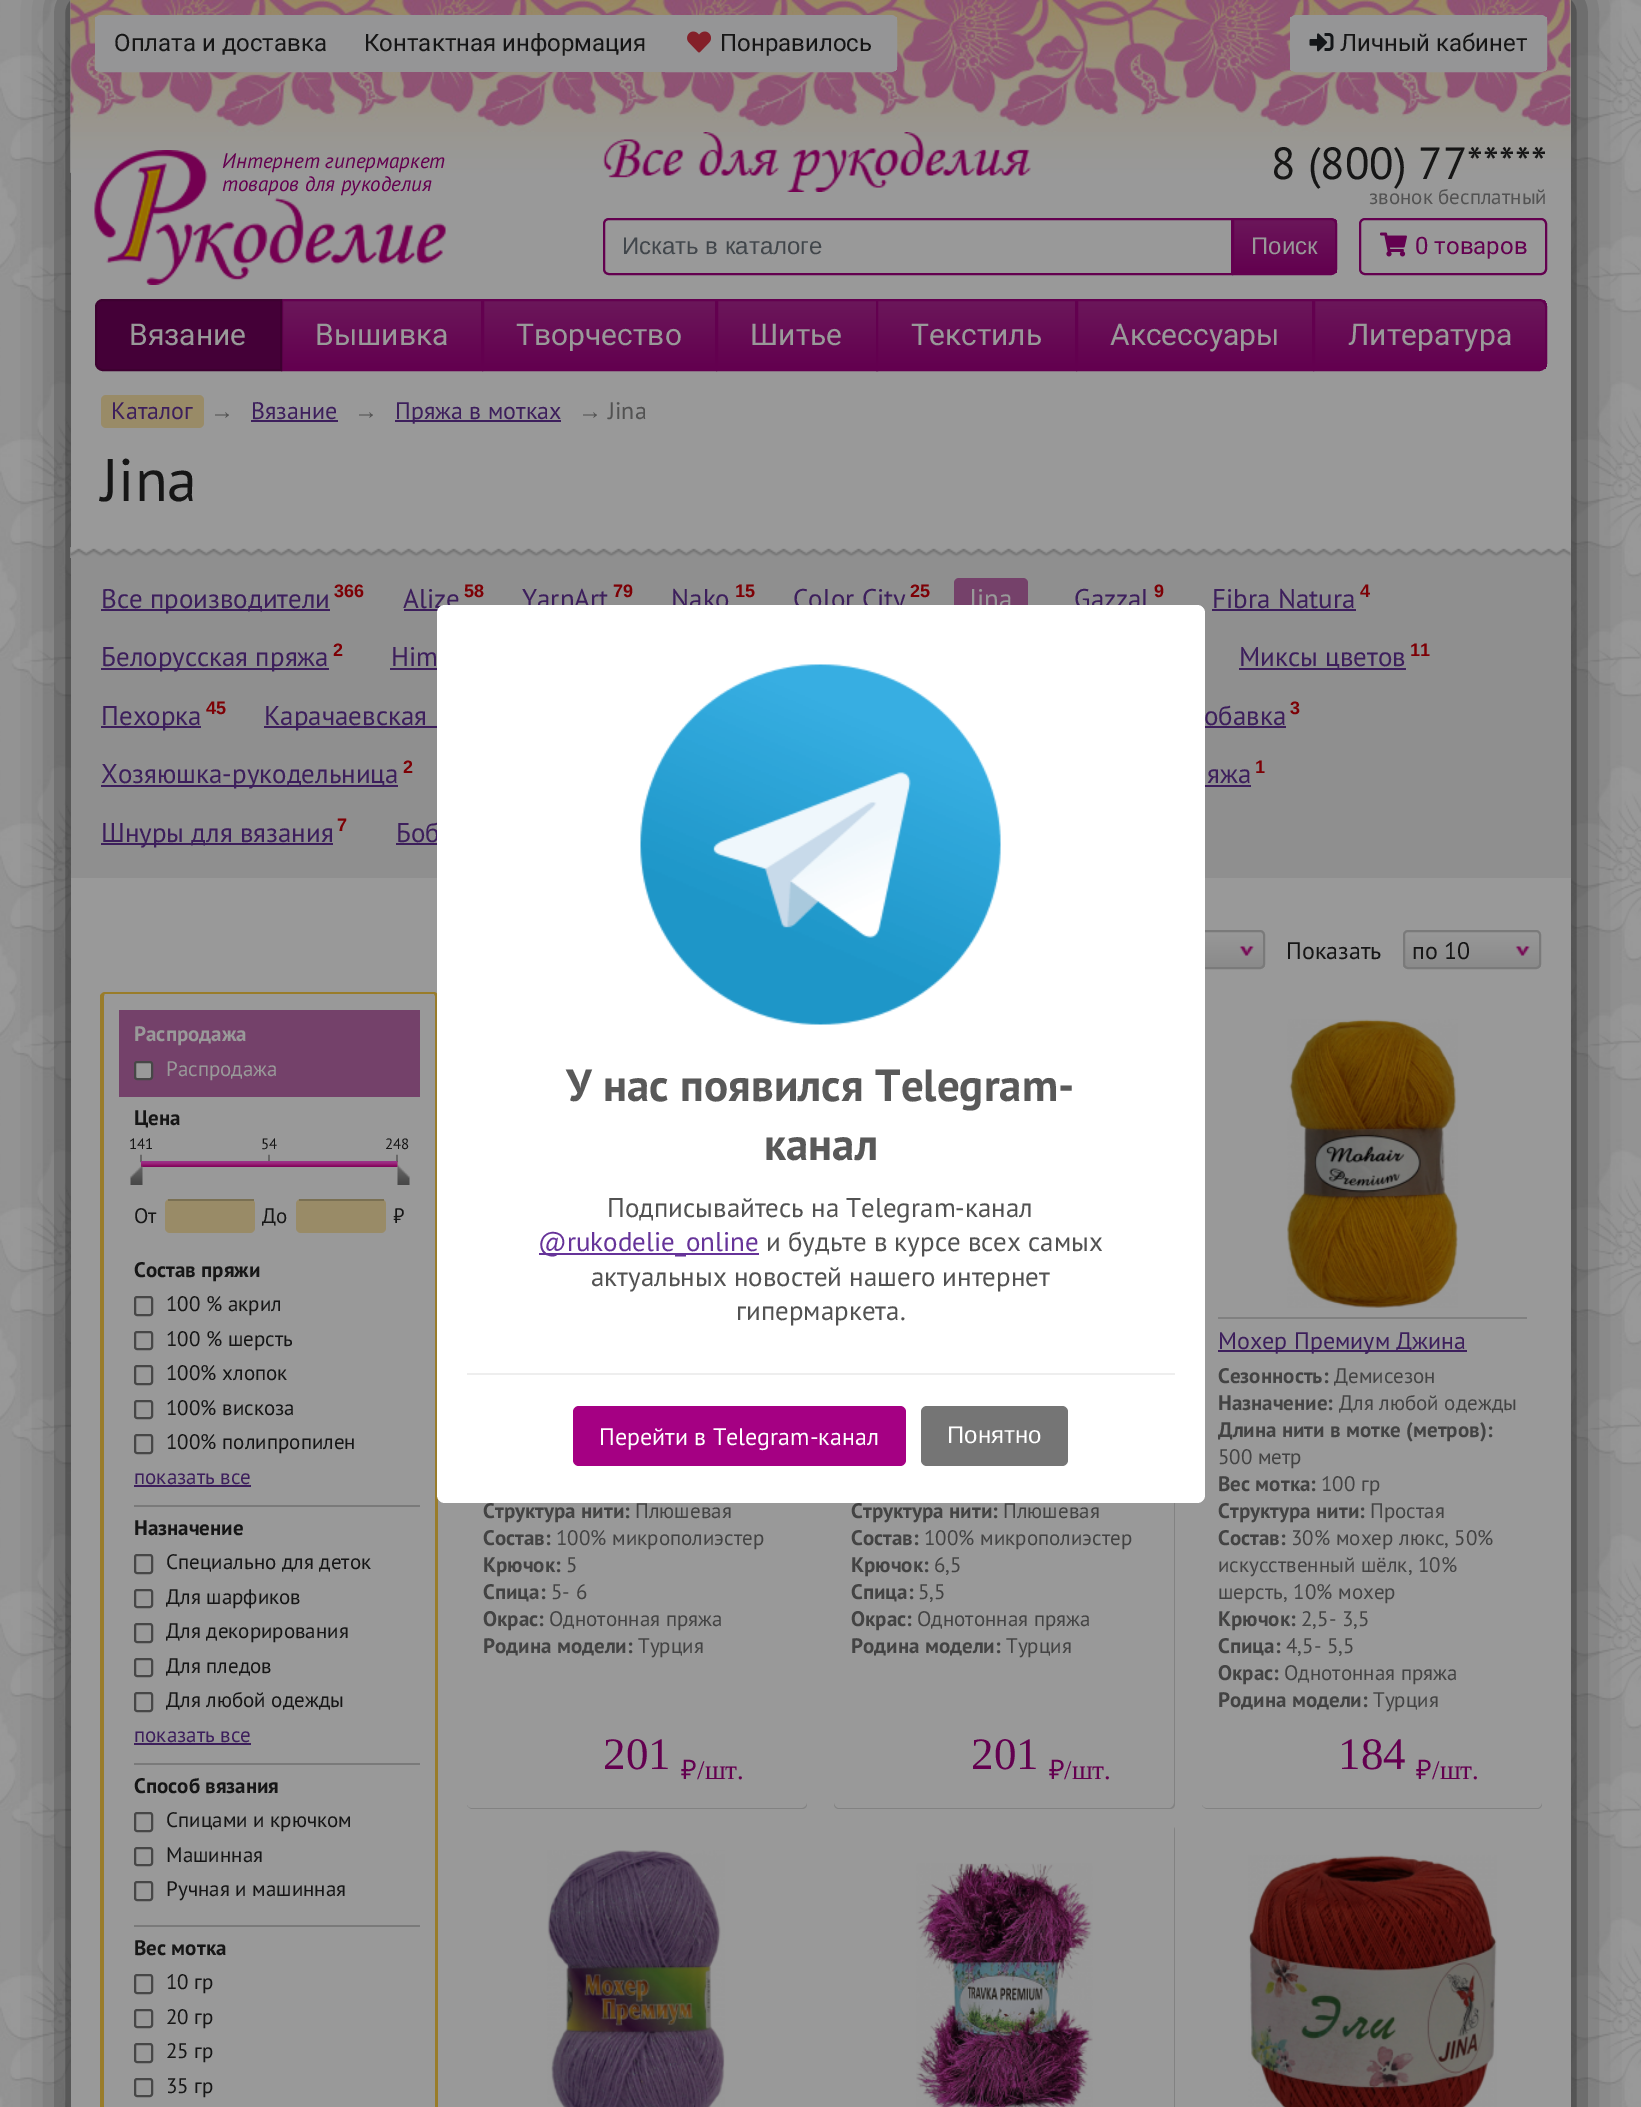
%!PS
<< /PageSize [1641 2107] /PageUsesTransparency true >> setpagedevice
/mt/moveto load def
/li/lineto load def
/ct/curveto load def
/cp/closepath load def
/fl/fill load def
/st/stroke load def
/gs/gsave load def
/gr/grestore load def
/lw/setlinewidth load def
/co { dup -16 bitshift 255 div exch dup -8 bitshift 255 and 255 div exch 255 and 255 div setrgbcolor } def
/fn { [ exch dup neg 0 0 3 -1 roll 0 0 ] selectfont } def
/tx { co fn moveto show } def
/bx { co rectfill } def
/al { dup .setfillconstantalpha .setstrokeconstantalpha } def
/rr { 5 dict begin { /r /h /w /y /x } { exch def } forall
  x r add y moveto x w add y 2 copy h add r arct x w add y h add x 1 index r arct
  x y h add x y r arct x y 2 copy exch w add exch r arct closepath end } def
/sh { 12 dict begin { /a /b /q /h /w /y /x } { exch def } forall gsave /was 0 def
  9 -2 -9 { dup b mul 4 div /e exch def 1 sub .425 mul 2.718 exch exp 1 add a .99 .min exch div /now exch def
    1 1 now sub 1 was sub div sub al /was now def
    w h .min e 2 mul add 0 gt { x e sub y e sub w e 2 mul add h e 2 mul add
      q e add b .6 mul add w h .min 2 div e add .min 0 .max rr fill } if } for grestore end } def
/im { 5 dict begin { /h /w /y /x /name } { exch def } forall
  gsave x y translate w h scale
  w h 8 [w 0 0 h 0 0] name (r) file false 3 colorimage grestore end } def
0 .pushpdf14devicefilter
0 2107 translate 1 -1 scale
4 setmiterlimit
0 0 1641 2107 16#FFFFFF bx
(media/1.raw) 0 0 1641 2107 im
16#161616 co
71 0 1500 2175 0 22.5 1 sh
71 0 1500 2107 16#999999 bx
(media/2.raw) 70 0 1501 173 im
gs
101 15 mt 347 15 li 347 72 li 101 72 li 97.5 72 95 69.5 95 66 ct 95 21 li 95 17.5 97.5 15 101 15 ct cp clip newpath
gs 95 17 mt 345 17 li 345 71 li 95 71 li cp clip newpath
<< /ShadingType 2 /ColorSpace /DeviceRGB /Coords [221 16 221 71] /Extend [true true] /Function << /FunctionType 2 /Domain [0 1] /C0 [.584 .588 .592] /C1 [.584 .584 .588] /N 1 >> >> shfill gr
gr
16#959596 co
2 lw
101 16 mt 346 16 li 346 71 li 101 71 li 98 71 96 69 96 66 ct 96 21 li 96 18 98 16 101 16 ct cp st
347 15 318 57 16#959596 bx
gs
665 15 mt 891 15 li 894.5 15 897 17.5 897 21 ct 897 66 li 897 69.5 894.5 72 891 72 ct 665 72 li cp clip newpath
gs 667 17 mt 897 17 li 897 71 li 667 71 li cp clip newpath
<< /ShadingType 2 /ColorSpace /DeviceRGB /Coords [781 16 781 71] /Extend [true true] /Function << /FunctionType 2 /Domain [0 1] /C0 [.584 .588 .592] /C1 [.584 .584 .588] /N 1 >> >> shfill gr
gr
666 16 mt 891 16 li 894 16 896 18 896 21 ct 896 66 li 896 69 894 71 891 71 ct 666 71 li cp st
(media/3.raw) 687 31 24 22 im
gs
1290 15 257 57 6 rr clip newpath
gs 1290 17 mt 1547 17 li 1547 71 li 1290 71 li cp clip newpath
<< /ShadingType 2 /ColorSpace /DeviceRGB /Coords [1418 16 1418 71] /Extend [true true] /Function << /FunctionType 2 /Domain [0 1] /C0 [.584 .588 .592] /C1 [.584 .584 .588] /N 1 >> >> shfill gr
gr
1291 16 255 55 5 rr st
(media/4.raw) 1309 33 25 19 im
(media/5.raw) 94 150 352 135 im
(media/6.raw) 603 132 428 60 im
16#63004F co
609 219 mt 1232 219 li 1232 274 li 609 274 li 606 274 604 272 604 269 ct 604 224 li 604 221 606 219 609 219 ct cp st
gs
1232 218 mt 1331 218 li 1334.5 218 1337 220.5 1337 224 ct 1337 269 li 1337 272.5 1334.5 275 1331 275 ct 1232 275 li cp clip newpath
gs 1234 219 mt 1337 219 li 1337 273 li 1234 273 li cp clip newpath
<< /ShadingType 2 /ColorSpace /DeviceRGB /Coords [1284 219 1284 273] /Extend [true true] /Function << /FunctionType 2 /Domain [0 1] /C0 [.42 .09 .353] /C1 [.388 0 .31] /N 1 >> >> shfill gr
gr
1233 219 mt 1331 219 li 1334 219 1336 221 1336 224 ct 1336 269 li 1336 272 1334 274 1331 274 ct 1233 274 li cp st
1360 219 186 55 5 rr st
(media/7.raw) 1380 232 27 25 im
gs 283 301 mt 481 301 li 481 369 li 283 369 li cp clip newpath
<< /ShadingType 2 /ColorSpace /DeviceRGB /Coords [382 300 382 369] /Extend [true true] /Function << /FunctionType 2 /Domain [0 1] /C0 [.42 .09 .353] /C1 [.388 0 .31] /N 1 >> >> shfill gr
282 300 200 70 rectstroke
16#440037 co
103 300 mt 281 300 li 281 370 li 103 370 li 99 370 96 367 96 363 ct 96 307 li 96 303 99 300 103 300 ct cp gs fl gr
16#3D0030 co
st
gs 484 301 mt 715 301 li 715 369 li 484 369 li cp clip newpath
<< /ShadingType 2 /ColorSpace /DeviceRGB /Coords [599 300 599 369] /Extend [true true] /Function << /FunctionType 2 /Domain [0 1] /C0 [.42 .09 .353] /C1 [.388 0 .31] /N 1 >> >> shfill gr
16#63004F co
483 300 233 70 rectstroke
gs 718 301 mt 876 301 li 876 369 li 718 369 li cp clip newpath
<< /ShadingType 2 /ColorSpace /DeviceRGB /Coords [797 300 797 369] /Extend [true true] /Function << /FunctionType 2 /Domain [0 1] /C0 [.42 .09 .353] /C1 [.388 0 .31] /N 1 >> >> shfill gr
717 300 160 70 rectstroke
gs 878 301 mt 1075 301 li 1075 369 li 878 369 li cp clip newpath
<< /ShadingType 2 /ColorSpace /DeviceRGB /Coords [977 300 977 369] /Extend [true true] /Function << /FunctionType 2 /Domain [0 1] /C0 [.42 .09 .353] /C1 [.388 0 .31] /N 1 >> >> shfill gr
877 300 199 70 rectstroke
gs 1078 301 mt 1312 301 li 1312 369 li 1078 369 li cp clip newpath
<< /ShadingType 2 /ColorSpace /DeviceRGB /Coords [1195 300 1195 369] /Extend [true true] /Function << /FunctionType 2 /Domain [0 1] /C0 [.42 .09 .353] /C1 [.388 0 .31] /N 1 >> >> shfill gr
1077 300 236 70 rectstroke
gs
1313 299 mt 1539 299 li 1543.5 299 1547 302.5 1547 307 ct 1547 363 li 1547 367.5 1543.5 371 1539 371 ct 1313 371 li cp clip newpath
gs 1315 300 mt 1547 300 li 1547 369 li 1315 369 li cp clip newpath
<< /ShadingType 2 /ColorSpace /DeviceRGB /Coords [1430 300 1430 369] /Extend [true true] /Function << /FunctionType 2 /Domain [0 1] /C0 [.42 .09 .353] /C1 [.388 0 .31] /N 1 >> >> shfill gr
gr
1314 300 mt 1539 300 li 1543 300 1546 303 1546 307 ct 1546 363 li 1546 367 1543 370 1539 370 ct 1314 370 li cp st
16#998B67 co
101 395 103 33 5 rr fl
251 420 87 2 16#3D1F5C bx
395 420 166 2 16#3D1F5C bx
71 548 1500 330 16#8F8F8F bx
(media/8.raw) 70 547 1501 11 im
101 609 229 2 16#3D1F5C bx
404 609 35 2 16#3D1F5C bx
16#75416A co
954 578 74 43 5 rr fl
1212 609 144 2 16#3D1F5C bx
101 668 228 2 16#3D1F5C bx
390 668 47 2 16#3D1F5C bx
1239 668 167 2 16#3D1F5C bx
101 726 100 2 16#3D1F5C bx
264 726 173 2 16#3D1F5C bx
1205 726 81 2 16#3D1F5C bx
101 785 297 2 16#3D1F5C bx
1205 785 46 2 16#3D1F5C bx
101 843 232 2 16#3D1F5C bx
396 843 41 2 16#3D1F5C bx
gs
947 930 318 39 5 rr clip newpath
gs 1205 932 mt 1265 932 li 1265 968 li 1205 968 li cp clip newpath
<< /ShadingType 2 /ColorSpace /DeviceRGB /Coords [948 932 948 968] /Extend [true true] /Function << /FunctionType 2 /Domain [0 1] /C0 [.596 .596 .596] /C1 [.541 .541 .541] /N 1 >> >> shfill gr
gr
16#7A7A7A co
948 931 316 37 4 rr st
(media/9.raw) 1239 946 15 10 im
gs
1403 930 138 39 5 rr clip newpath
gs 1403 932 mt 1541 932 li 1541 968 li 1403 968 li cp clip newpath
<< /ShadingType 2 /ColorSpace /DeviceRGB /Coords [1404 932 1404 968] /Extend [true true] /Function << /FunctionType 2 /Domain [0 1] /C0 [.596 .596 .596] /C1 [.541 .541 .541] /N 1 >> >> shfill gr
gr
1404 931 136 37 4 rr st
(media/10.raw) 1515 946 15 10 im
16#997C2A co
105 992 mt 434 992 li 436 992 438 994 438 996 ct 438 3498 li 438 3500 436 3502 434 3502 ct 105 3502 li 103 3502 100 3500 100 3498 ct 100 996 li 100 994 103 992 105 992 ct cp 105 994 mt 434 994 li 434 994 435 995 435 996 ct 435 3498 li 435 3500 434 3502 434 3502 ct 105 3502 li 104 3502 104 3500 104 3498 ct 104 996 li 104 995 104 994 105 994 ct cp eofill
119 1010 301 87 16#74416A bx
16#999999 co
135 1062 17 17 2 rr gs fl gr
16#474747 co
st
16#998B67 co
165 1199 90 34 5 rr fl
168 1199 86 2 16#7A7053 bx
16#998B67 co
296 1199 90 34 5 rr fl
299 1199 85 2 16#7A7053 bx
16#474747 co
135 1297 17 18 2 rr st
135 1332 17 17 2 rr st
135 1366 17 18 2 rr st
135 1401 17 17 2 rr st
135 1435 17 18 2 rr st
134 1485 117 2 16#3D1F5C bx
134 1505 286 2 16#7A7A7A bx
16#474747 co
135 1555 17 18 2 rr st
135 1590 17 17 2 rr st
135 1624 17 18 2 rr st
135 1659 17 17 2 rr st
135 1693 17 18 2 rr st
134 1743 117 2 16#3D1F5C bx
134 1763 286 2 16#7A7A7A bx
16#474747 co
135 1813 17 18 2 rr st
135 1848 17 17 2 rr st
135 1882 17 18 2 rr st
134 1925 286 2 16#7A7A7A bx
16#474747 co
135 1975 17 18 2 rr st
135 2010 17 17 2 rr st
135 2044 17 18 2 rr st
135 2079 17 17 2 rr st
16#828282 co
467 1805 mt 468 1807 470 1809 472 1809 ct 802 1809 li 805 1809 807 1807 807 1804 ct 807 1803 li 807 1805 805 1808 802 1808 ct 471 1808 li 469 1808 468 1807 467 1805 ct cp fl
834 1803 mt 834 1804 li 834 1807 836 1809 839 1809 ct 1170 1809 li 1173 1809 1175 1807 1175 1804 ct 1175 998 li 1174 996 li 1174 1803 li 1174 1805 1172 1808 1170 1808 ct 838 1808 li 836 1808 834 1805 834 1803 ct cp fl
1202 1805 mt 1203 1807 1205 1809 1207 1809 ct 1537 1809 li 1540 1809 1542 1807 1542 1804 ct 1542 1803 li 1542 1805 1540 1808 1538 1808 ct 1206 1808 li 1204 1808 1203 1807 1202 1805 ct cp fl
1218 1317 309 2 16#808080 bx
(media/15.raw) 1287 1019 171 289 im
1218 1350 249 2 16#3D1F5C bx
(media/16.raw) 547 1850 178 257 im
16#828282 co
834 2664 mt 834 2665 li 834 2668 836 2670 839 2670 ct 1170 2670 li 1173 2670 1175 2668 1175 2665 ct 1175 1829 li 1174 1827 li 1174 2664 li 1174 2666 1172 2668 1170 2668 ct 838 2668 li 836 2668 834 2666 834 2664 ct cp fl
(media/17.raw) 916 1863 177 244 im
(media/18.raw) 1248 1855 249 252 im
(Оплата и доставка) 114 51 /Roboto-Regular 24 16#161616 tx
(Контактная информация) 364 51 /Roboto-Regular 24 16#161616 tx
(Понравилось) 720 51 /Roboto-Regular 24 16#161616 tx
(Личный кабинет) 1340 51 /Roboto-Regular 24 16#161616 tx
(Интернет гипермаркет) 222 168 /PTSans-Italic 21 16#63004F tx
(товаров для рукоделия) 222 191 /PTSans-Italic 21 16#63004F tx
(8 \(800\) 77*****) 1271 179 /PTSans-Regular 45 16#161616 tx
(звонок бесплатный) 1369 204 /PTSans-Regular 21 16#525252 tx
(Искать в каталоге) 622 254 /LiberationSans-Regular 24 16#41464B tx
(Поиск) 1251 254 /LiberationSans-Regular 24 16#999999 tx
(0 товаров) 1415 254 /Roboto-Regular 24 16#63004F tx
(Вязание) 129 345 /Roboto-Regular 30 16#999999 tx
(Вышивка) 315 345 /Roboto-Regular 30 16#999999 tx
(Творчество) 516 345 /Roboto-Regular 30 16#999999 tx
(Шитье) 750 345 /Roboto-Regular 30 16#999999 tx
(Текстиль) 911 345 /Roboto-Regular 30 16#999999 tx
(Аксессуары) 1110 345 /Roboto-Regular 30 16#999999 tx
(Литература) 1348 345 /Roboto-Regular 30 16#999999 tx
(Каталог) 111 419 /PTSans-Regular 24 16#3D1F5C tx
(→) 210 419 /LiberationSans-Regular 24 16#525252 tx
(Вязание) 251 419 /PTSans-Regular 24 16#3D1F5C tx
(→) 354 419 /LiberationSans-Regular 24 16#525252 tx
(Пряжа в мотках) 395 419 /PTSans-Regular 24 16#3D1F5C tx
(→) 578 419 /LiberationSans-Regular 24 16#525252 tx
(Jina) 608 419 /PTSans-Regular 24 16#525252 tx
(Jina) 101 501 /PTSans-Regular 60 16#161616 tx
(Все производители) 101 608 /PTSans-Regular 27 16#3D1F5C tx
(366) 334 597 /LiberationSans-Bold 18 16#7D0005 tx
(Alize) 403 608 /PTSans-Regular 27 16#3D1F5C tx
(58) 464 597 /LiberationSans-Bold 18 16#7D0005 tx
(YarnArt) 522 608 /PTSans-Regular 27 16#3D1F5C tx
(79) 613 597 /LiberationSans-Bold 18 16#7D0005 tx
(Nako) 671 608 /PTSans-Regular 27 16#3D1F5C tx
(15) 735 597 /LiberationSans-Bold 18 16#7D0005 tx
(Color City) 793 608 /PTSans-Regular 27 16#3D1F5C tx
(25) 910 597 /LiberationSans-Bold 18 16#7D0005 tx
(Jina) 969 608 /PTSans-Regular 27 16#999999 tx
(Gazzal) 1074 608 /PTSans-Regular 27 16#3D1F5C tx
(9) 1154 597 /LiberationSans-Bold 18 16#7D0005 tx
(Fibra Natura) 1212 608 /PTSans-Regular 27 16#3D1F5C tx
(4) 1360 597 /LiberationSans-Bold 18 16#7D0005 tx
(Белорусская пряжа) 101 666 /PTSans-Regular 27 16#3D1F5C tx
(2) 333 656 /LiberationSans-Bold 18 16#7D0005 tx
(Him) 391 666 /PTSans-Regular 27 16#3D1F5C tx
(Миксы цветов) 1239 666 /PTSans-Regular 27 16#3D1F5C tx
(11) 1410 656 /LiberationSans-Bold 18 16#7D0005 tx
(Пехорка) 101 725 /PTSans-Regular 27 16#3D1F5C tx
(45) 206 714 /LiberationSans-Bold 18 16#7D0005 tx
(Карачаевская) 264 725 /PTSans-Regular 27 16#3D1F5C tx
(обавка) 1204 725 /PTSans-Regular 27 16#3D1F5C tx
(3) 1290 714 /LiberationSans-Bold 18 16#7D0005 tx
(Хозяюшка-рукодельница) 101 783 /PTSans-Regular 27 16#3D1F5C tx
(2) 403 773 /LiberationSans-Bold 18 16#7D0005 tx
(1) 1255 773 /LiberationSans-Bold 18 16#7D0005 tx
(яжа) 1207 783 /PTSans-Regular 27 16#3D1F5C tx
(Шнуры для вязания) 101 842 /PTSans-Regular 27 16#3D1F5C tx
(7) 337 831 /LiberationSans-Bold 18 16#7D0005 tx
(Боб) 396 842 /PTSans-Regular 27 16#3D1F5C tx
(Показать) 1286 959 /PTSans-Regular 24 16#161616 tx
(по 10) 1412 959 /PTSans-Regular 24 16#161616 tx
(Распродажа) 134 1041 /PTSans-Bold 21 16#999999 tx
(Распродажа) 166 1076 /PTSans-Regular 21 16#999999 tx
(Цена) 134 1125 /PTSans-Bold 21 16#161616 tx
(141) 129 1149 /PTSans-Regular 15 16#161616 tx
(|) 140 1161 /PTSans-Bold 9 16#3D3D3D tx
(54) 261 1149 /PTSans-Regular 15 16#161616 tx
(|) 268 1161 /PTSans-Bold 9 16#3D3D3D tx
(248) 385 1149 /PTSans-Regular 15 16#161616 tx
(|) 396 1161 /PTSans-Bold 9 16#3D3D3D tx
(media/11.raw) 397 1161 1 6 im
(media/12.raw) 141 1161 257 6 im
(media/13.raw) 130 1165 13 20 im
(media/14.raw) 397 1165 13 20 im
(От) 134 1223 /PTSans-Regular 21 16#161616 tx
(До) 262 1223 /PTSans-Regular 21 16#161616 tx
(₽) 393 1223 /PTSans-Regular 21 16#161616 tx
(Состав пряжи) 134 1277 /PTSans-Bold 21 16#161616 tx
(100 % акрил) 166 1311 /PTSans-Regular 21 16#161616 tx
(100 % шерсть) 166 1346 /PTSans-Regular 21 16#161616 tx
(100% хлопок) 166 1380 /PTSans-Regular 21 16#161616 tx
(100% вискоза) 166 1415 /PTSans-Regular 21 16#161616 tx
(100% полипропилен) 166 1449 /PTSans-Regular 21 16#161616 tx
(показать все) 134 1484 /PTSans-Regular 21 16#3D1F5C tx
(Назначение) 134 1535 /PTSans-Bold 21 16#161616 tx
(Специально для деток) 166 1569 /PTSans-Regular 21 16#161616 tx
(Для шарфиков) 166 1604 /PTSans-Regular 21 16#161616 tx
(Для декорирования) 166 1638 /PTSans-Regular 21 16#161616 tx
(Для пледов) 166 1673 /PTSans-Regular 21 16#161616 tx
(Для любой одежды) 166 1707 /PTSans-Regular 21 16#161616 tx
(показать все) 134 1742 /PTSans-Regular 21 16#3D1F5C tx
(Способ вязания) 134 1793 /PTSans-Bold 21 16#161616 tx
(Спицами и крючком) 166 1827 /PTSans-Regular 21 16#161616 tx
(Машинная) 166 1862 /PTSans-Regular 21 16#161616 tx
(Ручная и машинная) 166 1896 /PTSans-Regular 21 16#161616 tx
(Вес мотка) 134 1955 /PTSans-Bold 21 16#161616 tx
(10 гр) 166 1989 /PTSans-Regular 21 16#161616 tx
(20 гр) 166 2024 /PTSans-Regular 21 16#161616 tx
(25 гр) 166 2058 /PTSans-Regular 21 16#161616 tx
(35 гр) 166 2093 /PTSans-Regular 21 16#161616 tx
(Структура нити:) 483 1518 /PTSans-Bold 21 16#434343 tx
(Плюшевая) 635 1518 /PTSans-Regular 21 16#434343 tx
(Состав:) 483 1545 /PTSans-Bold 21 16#434343 tx
(100% микрополиэстер) 556 1545 /PTSans-Regular 21 16#434343 tx
(Крючок:) 483 1572 /PTSans-Bold 21 16#434343 tx
(5) 566 1572 /PTSans-Regular 21 16#434343 tx
(Спица:) 483 1599 /PTSans-Bold 21 16#434343 tx
(5- 6) 551 1599 /PTSans-Regular 21 16#434343 tx
(Окрас:) 483 1626 /PTSans-Bold 21 16#434343 tx
(Однотонная пряжа) 549 1626 /PTSans-Regular 21 16#434343 tx
(Родина модели:) 483 1653 /PTSans-Bold 21 16#434343 tx
(Турция) 638 1653 /PTSans-Regular 21 16#434343 tx
(201) 603 1769 /LiberationSerif-Regular 45 16#63004F tx
(₽) 681 1779 /NotoSans-Regular 27 16#63004F tx
(/шт.) 697 1779 /LiberationSerif-Regular 27 16#63004F tx
(Структура нити:) 851 1518 /PTSans-Bold 21 16#434343 tx
(Плюшевая) 1003 1518 /PTSans-Regular 21 16#434343 tx
(Состав:) 851 1545 /PTSans-Bold 21 16#434343 tx
(100% микрополиэстер) 924 1545 /PTSans-Regular 21 16#434343 tx
(Крючок:) 851 1572 /PTSans-Bold 21 16#434343 tx
(6,5) 934 1572 /PTSans-Regular 21 16#434343 tx
(Спица:) 851 1599 /PTSans-Bold 21 16#434343 tx
(5,5) 918 1599 /PTSans-Regular 21 16#434343 tx
(Окрас:) 851 1626 /PTSans-Bold 21 16#434343 tx
(Однотонная пряжа) 917 1626 /PTSans-Regular 21 16#434343 tx
(Родина модели:) 851 1653 /PTSans-Bold 21 16#434343 tx
(Турция) 1006 1653 /PTSans-Regular 21 16#434343 tx
(201) 971 1769 /LiberationSerif-Regular 45 16#63004F tx
(₽) 1049 1779 /NotoSans-Regular 27 16#63004F tx
(/шт.) 1064 1779 /LiberationSerif-Regular 27 16#63004F tx
(Мохер Премиум Джина) 1218 1349 /PTSans-Regular 24 16#3D1F5C tx
(Сезонность:) 1218 1383 /PTSans-Bold 21 16#434343 tx
(Демисезон) 1334 1383 /PTSans-Regular 21 16#434343 tx
(Назначение:) 1218 1410 /PTSans-Bold 21 16#434343 tx
(Для любой одежды) 1339 1410 /PTSans-Regular 21 16#434343 tx
(Длина нити в мотке \(метров\):) 1218 1437 /PTSans-Bold 21 16#434343 tx
(500 метр) 1218 1464 /PTSans-Regular 21 16#434343 tx
(Вес мотка:) 1218 1491 /PTSans-Bold 21 16#434343 tx
(100 гр) 1321 1491 /PTSans-Regular 21 16#434343 tx
(Структура нити:) 1218 1518 /PTSans-Bold 21 16#434343 tx
(Простая) 1370 1518 /PTSans-Regular 21 16#434343 tx
(Состав:) 1218 1545 /PTSans-Bold 21 16#434343 tx
(30% мохер люкс, 50%) 1291 1545 /PTSans-Regular 21 16#434343 tx
(искусственный шёлк, 10%) 1218 1572 /PTSans-Regular 21 16#434343 tx
(шерсть, 10% мохер) 1218 1599 /PTSans-Regular 21 16#434343 tx
(Крючок:) 1218 1626 /PTSans-Bold 21 16#434343 tx
(2,5- 3,5) 1301 1626 /PTSans-Regular 21 16#434343 tx
(Спица:) 1218 1653 /PTSans-Bold 21 16#434343 tx
(4,5- 5,5) 1286 1653 /PTSans-Regular 21 16#434343 tx
(Окрас:) 1218 1680 /PTSans-Bold 21 16#434343 tx
(Однотонная пряжа) 1284 1680 /PTSans-Regular 21 16#434343 tx
(Родина модели:) 1218 1707 /PTSans-Bold 21 16#434343 tx
(Турция) 1373 1707 /PTSans-Regular 21 16#434343 tx
(184) 1338 1769 /LiberationSerif-Regular 45 16#63004F tx
(₽) 1416 1779 /NotoSans-Regular 27 16#63004F tx
(/шт.) 1432 1779 /LiberationSerif-Regular 27 16#63004F tx
16#FFFFFF co
437 605 768 898 8 rr fl
(media/19.raw) 640 664 361 361 im
(У нас появился Telegram-) 566 1101 /PTSans-Bold 45 16#595959 tx
(канaл) 764 1160 /PTSans-Bold 45 16#595959 tx
(Подписывайтесь на Telegram-канал) 607 1217 /PTSans-Regular 27 16#525252 tx
539 1253 220 2 16#663399 bx
(@rukodelie_online) 538 1251 /PTSans-Regular 27 16#663399 tx
(и будьте в курсе всех самых) 766 1251 /PTSans-Regular 27 16#525252 tx
(актуальных новостей нашего интернет) 591 1286 /PTSans-Regular 27 16#525252 tx
(гипермаркета.) 736 1320 /PTSans-Regular 27 16#525252 tx
467 1373 708 2 16#EEEEEE bx
16#A50083 co
573 1406 333 60 6 rr fl
(Перейти в Telegram-канал) 599 1445 /PTSans-Regular 24 16#FFFFFF tx
16#757575 co
921 1406 147 60 6 rr fl
(Понятно) 947 1443 /LiberationSans-Regular 24 16#FFFFFF tx
.poppdf14devicefilter showpage
